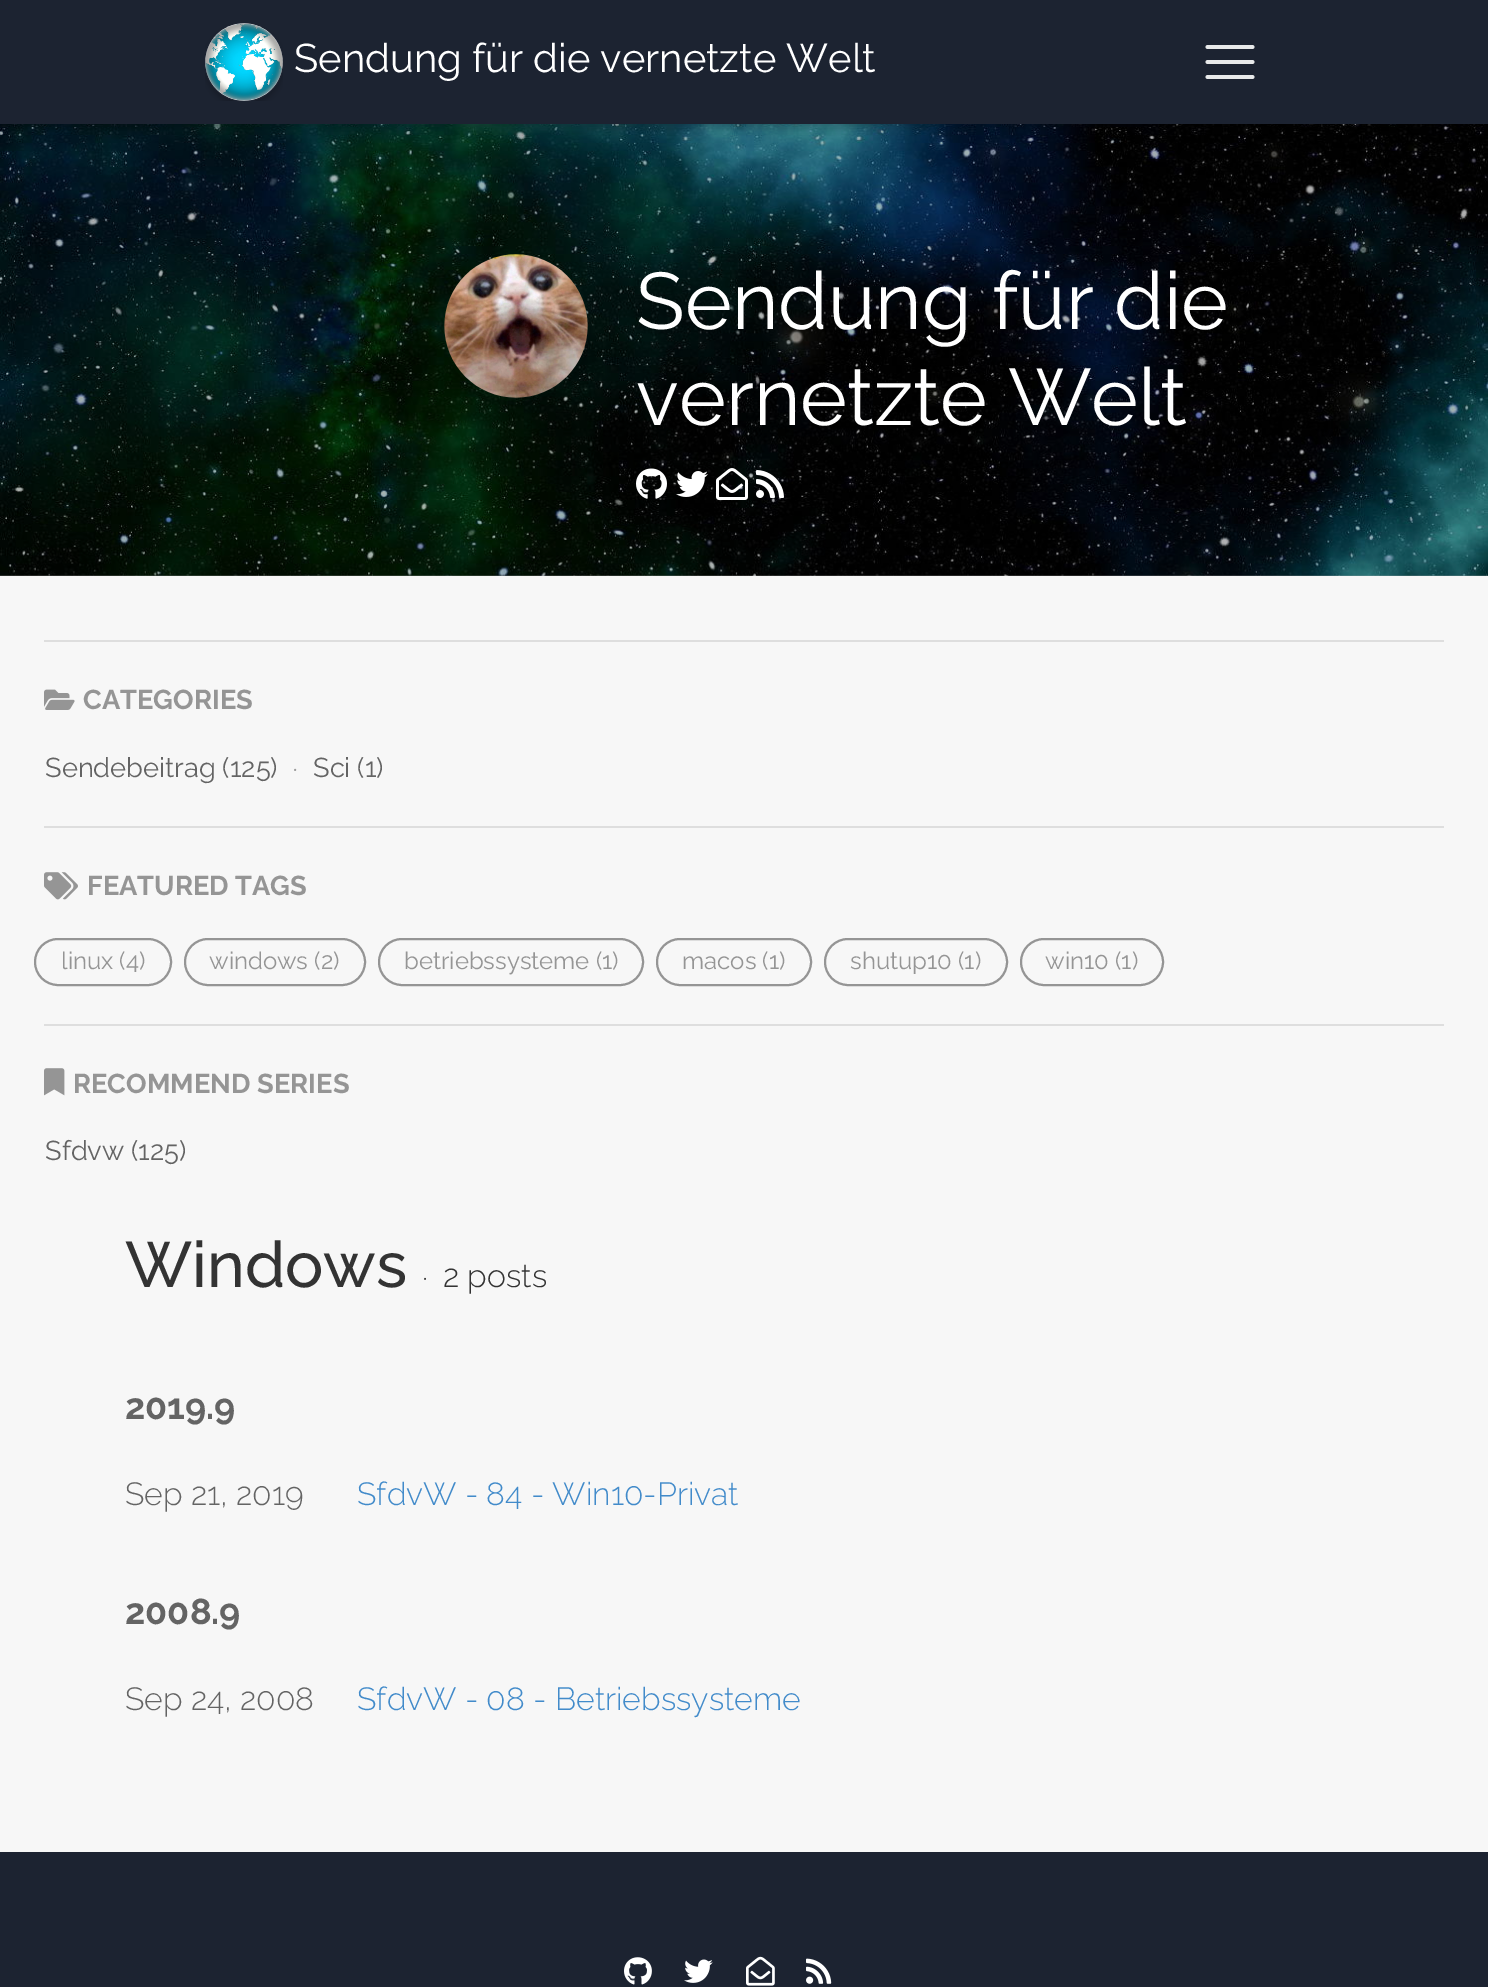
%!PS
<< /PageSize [1488 1987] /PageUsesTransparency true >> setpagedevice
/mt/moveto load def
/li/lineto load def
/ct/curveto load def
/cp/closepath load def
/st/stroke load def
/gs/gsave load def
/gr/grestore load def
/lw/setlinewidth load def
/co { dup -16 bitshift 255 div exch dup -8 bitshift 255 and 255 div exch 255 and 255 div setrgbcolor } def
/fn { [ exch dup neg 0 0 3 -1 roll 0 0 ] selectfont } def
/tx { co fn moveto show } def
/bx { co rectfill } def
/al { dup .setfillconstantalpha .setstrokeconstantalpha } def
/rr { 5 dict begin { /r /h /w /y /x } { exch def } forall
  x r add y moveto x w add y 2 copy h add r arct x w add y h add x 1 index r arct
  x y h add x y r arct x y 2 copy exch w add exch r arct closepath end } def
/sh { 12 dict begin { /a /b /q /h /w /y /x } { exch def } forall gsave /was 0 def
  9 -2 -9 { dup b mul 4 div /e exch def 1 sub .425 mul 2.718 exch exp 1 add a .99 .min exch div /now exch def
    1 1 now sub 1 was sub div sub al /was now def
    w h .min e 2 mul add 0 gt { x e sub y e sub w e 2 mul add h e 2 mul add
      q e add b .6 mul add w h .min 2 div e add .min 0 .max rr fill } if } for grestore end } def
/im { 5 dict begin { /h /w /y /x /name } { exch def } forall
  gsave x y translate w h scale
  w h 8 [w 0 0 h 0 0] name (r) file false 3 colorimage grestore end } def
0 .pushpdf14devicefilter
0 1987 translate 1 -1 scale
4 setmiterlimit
0 0 1488 1987 16#F7F7F7 bx
(media/2.raw) 0 124 1488 452 im
16#000000 co
0 4 1488 124 0 10 .12 sh
0 4 1488 124 0 5 .16 sh
0 0 1488 124 16#1C2331 bx
(media/1.raw) 205 23 78 78 im
16#E8E9EA co
3.8 lw
1 setlinecap
1207.5 47 mt 1252.5 47 li 1207.5 62 mt 1252.5 62 li 1207.5 77 mt 1252.5 77 li st
gs
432 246 mt 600 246 li 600 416 li 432 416 li cp 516 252 mt 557 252 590 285 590 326 ct 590 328 li 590 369 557 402 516 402 ct 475 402 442 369 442 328 ct 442 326 li 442 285 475 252 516 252 ct cp eoclip newpath
16#000000 co
442 256 148 150 74 3 .2 sh
gr
(media/3.raw) 444 254 144 144 im
(media/4.raw) 636 468 31 31 im
(media/5.raw) 676 471 32 26 im
(media/6.raw) 716 468 32 32 im
(media/7.raw) 756 470 28 28 im
44 640 1400 2 16#DEDEDE bx
(media/8.raw) 44 689 31 21 im
44 826 1400 2 16#DEDEDE bx
(media/9.raw) 44 872 34 28 im
16#959595 co
2 lw
0 setlinecap
35 939 136 46 23 rr st
185 939 180 46 23 rr st
379 939 264 46 23 rr st
657 939 154 46 23 rr st
825 939 182 46 23 rr st
1021 939 142 46 23 rr st
44 1024 1400 2 16#DEDEDE bx
(media/10.raw) 44 1068 21 28 im
0 1852 1488 135 16#1C2331 bx
(media/11.raw) 624 1957 28 28 im
(media/12.raw) 684 1959 29 24 im
(media/13.raw) 746 1956 29 30 im
(media/14.raw) 806 1958 26 26 im
(Sendung für die vernetzte Welt) 294 72 /Raleway-Regular 40 16#FFFFFF tx
(Sendung für die) 636 329 /Raleway-Regular 80 16#FFFFFF tx
(vernetzte Welt) 636 425 /Raleway-Regular 80 16#FFFFFF tx
(CATEGORIES) 83 709 /Raleway-Bold 27.25 16#959595 tx
(Sendebeitrag \(125\)) 45 777 /Raleway-Regular 27.25 16#646464 tx
(•) 293 774 /Raleway-Regular 12 16#959595 tx
(Sci \(1\)) 313 777 /Raleway-Regular 27.25 16#646464 tx
(FEATURED TAGS) 87 895 /Raleway-Bold 27.25 16#959595 tx
(linux \(4\)) 61 969 /Raleway-Regular 24 16#959595 tx
(windows \(2\)) 209 969 /Raleway-Regular 24 16#959595 tx
(betriebssysteme \(1\)) 404 969 /Raleway-Regular 24 16#959595 tx
(macos \(1\)) 682 969 /Raleway-Regular 24 16#959595 tx
(shutup10 \(1\)) 850 969 /Raleway-Regular 24 16#959595 tx
(win10 \(1\)) 1045 969 /Raleway-Regular 24 16#959595 tx
(RECOMMEND SERIES) 73 1093 /Raleway-Bold 27.25 16#959595 tx
(Sfdvw \(125\)) 45 1160 /Raleway-Regular 27.25 16#646464 tx
(Windows) 125 1287 /Raleway-Medium 64 16#333333 tx
(•) 423 1283 /Raleway-Light 12 16#333333 tx
(2 posts) 443 1287 /Raleway-Light 32 16#333333 tx
(2019.9) 125 1419 /Raleway-Bold 36 16#646464 tx
(Sep 21, 2019) 125 1505 /Raleway-Light 32 16#646464 tx
(SfdvW - 84 - Win10-Privat) 357 1505 /Raleway-Light 32 16#428BCA tx
(2008.9) 125 1624 /Raleway-Bold 36 16#646464 tx
(Sep 24, 2008) 125 1710 /Raleway-Light 32 16#646464 tx
(SfdvW - 08 - Betriebssysteme) 357 1710 /Raleway-Light 32 16#428BCA tx
.poppdf14devicefilter showpage
